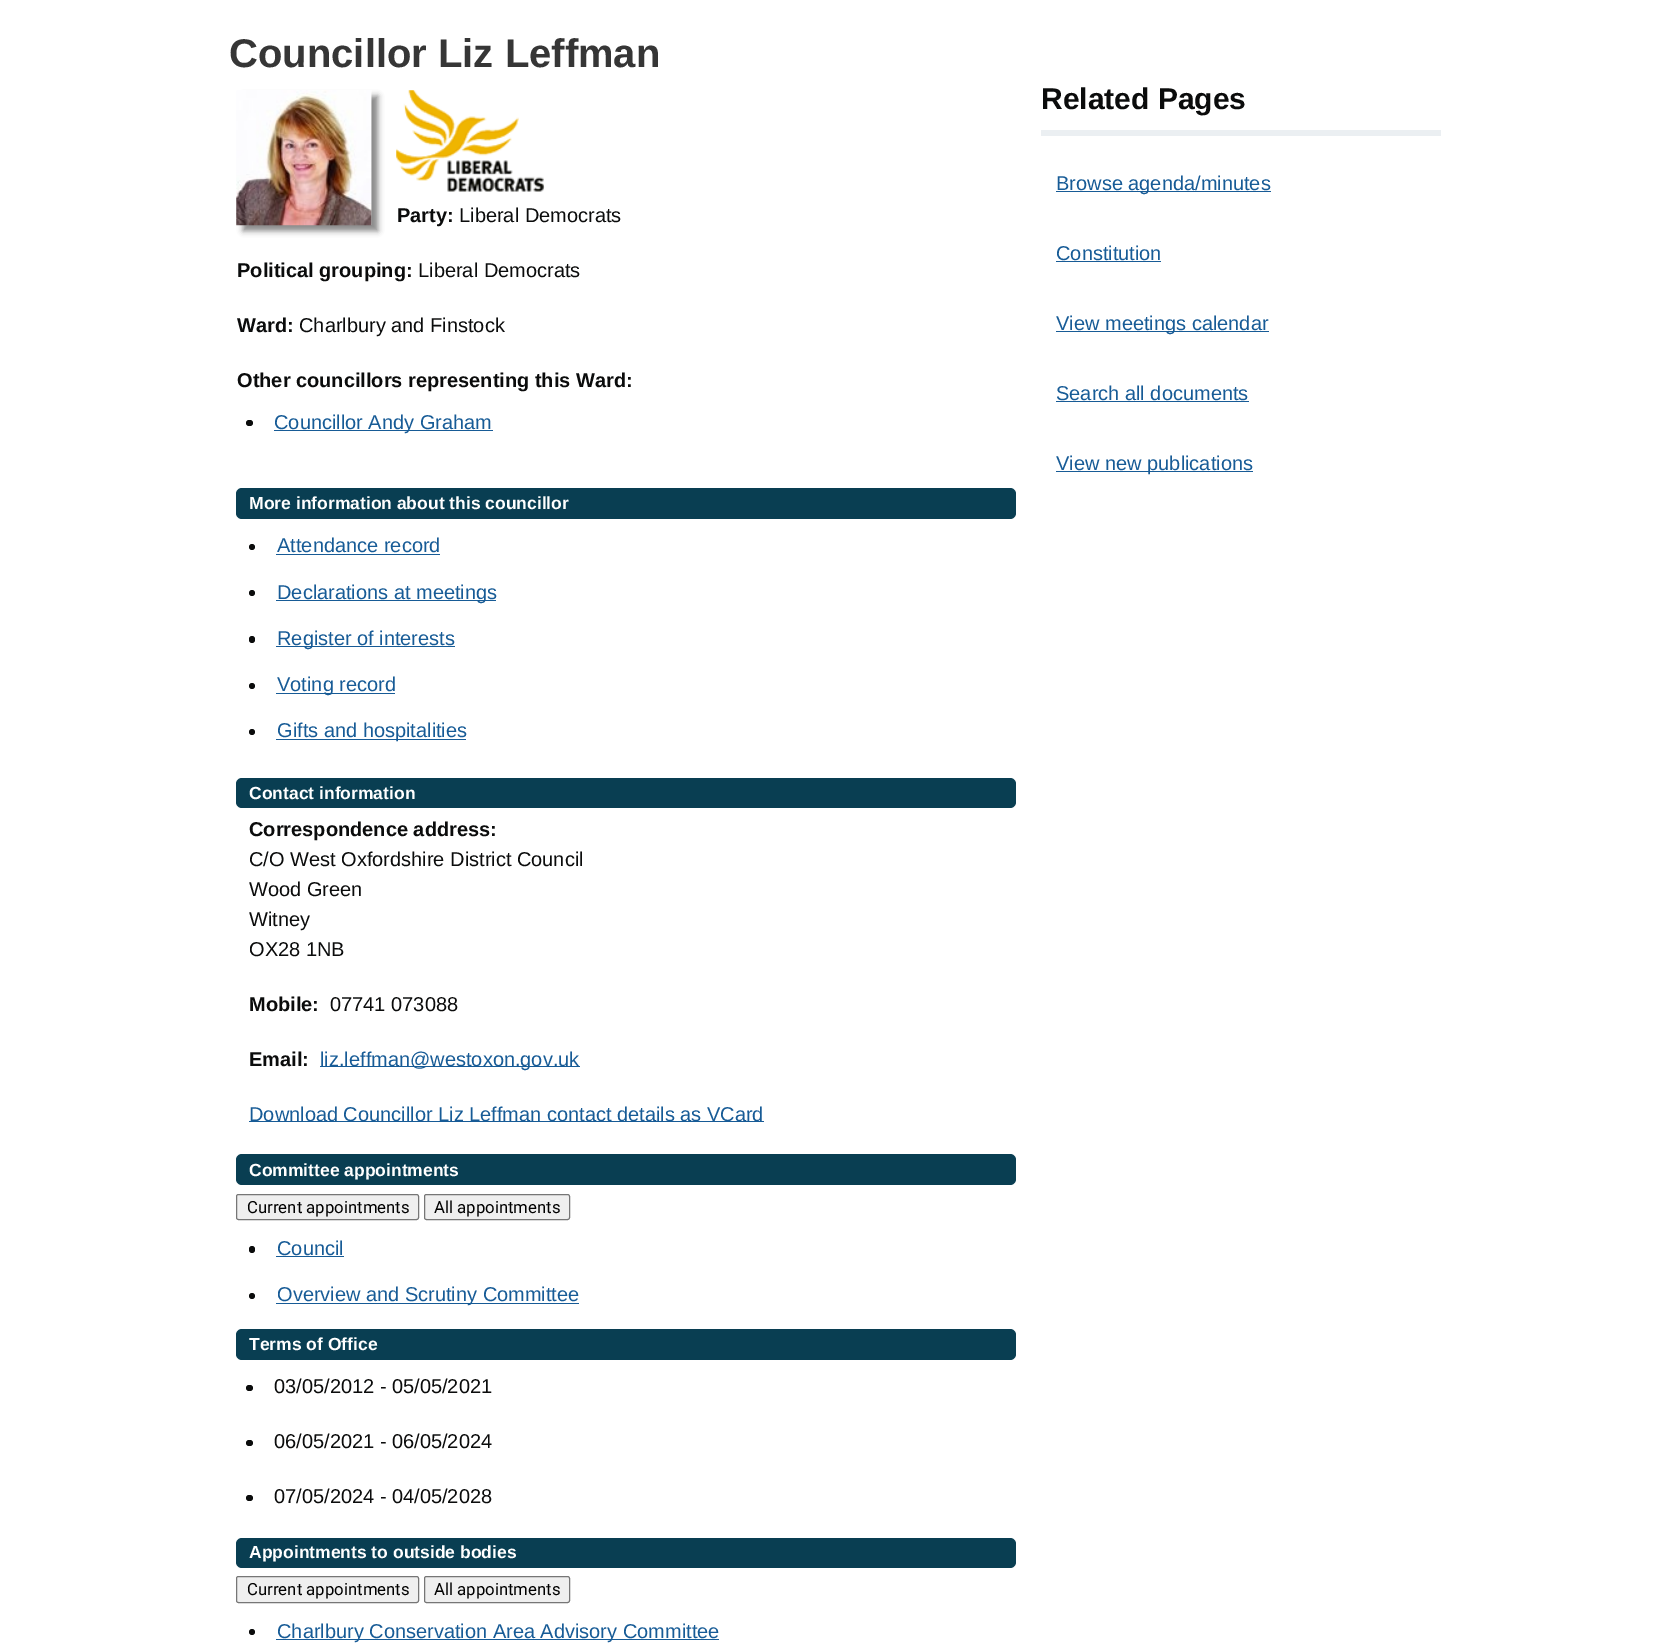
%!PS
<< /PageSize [1657 1647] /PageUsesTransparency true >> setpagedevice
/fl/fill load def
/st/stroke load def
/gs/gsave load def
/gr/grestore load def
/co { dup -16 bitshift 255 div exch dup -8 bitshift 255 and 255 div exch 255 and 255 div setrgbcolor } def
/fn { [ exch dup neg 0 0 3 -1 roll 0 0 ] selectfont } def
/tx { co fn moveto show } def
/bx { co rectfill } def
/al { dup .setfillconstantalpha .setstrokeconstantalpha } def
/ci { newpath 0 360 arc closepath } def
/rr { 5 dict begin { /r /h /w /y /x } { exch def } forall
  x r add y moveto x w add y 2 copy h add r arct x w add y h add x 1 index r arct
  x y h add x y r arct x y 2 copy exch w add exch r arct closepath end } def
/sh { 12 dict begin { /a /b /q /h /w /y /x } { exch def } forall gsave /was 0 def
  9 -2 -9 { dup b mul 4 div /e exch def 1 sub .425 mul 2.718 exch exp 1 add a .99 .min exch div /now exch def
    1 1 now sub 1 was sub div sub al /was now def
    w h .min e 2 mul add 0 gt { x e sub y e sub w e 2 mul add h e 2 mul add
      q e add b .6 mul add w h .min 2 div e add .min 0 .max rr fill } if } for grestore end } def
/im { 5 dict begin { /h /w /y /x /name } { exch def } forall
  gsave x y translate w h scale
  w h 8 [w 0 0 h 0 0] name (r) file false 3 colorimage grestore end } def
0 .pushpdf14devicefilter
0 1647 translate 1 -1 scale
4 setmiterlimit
0 0 1657 1647 16#FFFFFF bx
16#888888 co
243 96 135 135 0 3 1 sh
(media/1.raw) 236 90 136 136 im
(media/2.raw) 396 90 149 102 im
16#0B0C0C co
246 420 7 6 3 rr fl
274 430 219 1 16#175B96 bx
16#093E52 co
236 488 780 31 6 rr fl
16#0B0C0C co
252 547 3 ci fl
276 554 164 1 16#175B96 bx
16#0B0C0C co
252 593 3 ci fl
276 600 220 1 16#175B96 bx
16#0B0C0C co
249 636 6 7 3 rr fl
276 646 179 1 16#175B96 bx
16#0B0C0C co
252 686 3 ci fl
276 693 119 1 16#175B96 bx
16#0B0C0C co
252 732 3 ci fl
276 739 190 1 16#175B96 bx
16#093E52 co
236 778 780 30 6 rr fl
320 1066 260 1 16#175B96 bx
249 1121 515 1 16#175B96 bx
16#093E52 co
236 1154 780 31 6 rr fl
16#EFEFEF co
236.5 1194.5 182 25 2 rr gs fl gr
16#767676 co
st
16#EFEFEF co
424.5 1194.5 145 25 2 rr gs fl gr
16#767676 co
st
16#0B0C0C co
249 1246 6 7 3 rr fl
276 1256 68 1 16#175B96 bx
16#0B0C0C co
252 1296 3 ci fl
276 1303 303 1 16#175B96 bx
16#093E52 co
236 1329 780 31 6 rr fl
16#0B0C0C co
246 1385 7 6 3 rr fl
246 1440 7 6 3 rr fl
246 1495 7 6 3 rr fl
16#093E52 co
236 1538 780 30 6 rr fl
16#EFEFEF co
236.5 1576.5 182 26 2 rr gs fl gr
16#767676 co
st
16#EFEFEF co
424.5 1576.5 145 26 2 rr gs fl gr
16#767676 co
st
16#0B0C0C co
252 1632 3 ci fl
276 1639 443 1 16#175B96 bx
1041 130 400 6 16#EBEFF2 bx
1056 191 215 1 16#175B96 bx
1056 261 105 1 16#175B96 bx
1056 331 213 1 16#175B96 bx
1056 401 193 1 16#175B96 bx
1056 471 197 1 16#175B96 bx
(Councillor Liz Leffman) 229 67 /LiberationSans-Bold 40 16#363636 tx
(Party:) 397 222 /LiberationSans-Bold 20 16#0B0C0C tx
(Liberal Democrats) 459 222 /LiberationSans-Regular 20 16#0B0C0C tx
(Political grouping:) 237 277 /LiberationSans-Bold 20 16#0B0C0C tx
(Liberal Democrats) 418 277 /LiberationSans-Regular 20 16#0B0C0C tx
(Ward:) 237 332 /LiberationSans-Bold 20 16#0B0C0C tx
(Charlbury and Finstock) 299 332 /LiberationSans-Regular 20 16#0B0C0C tx
(Other councillors representing this Ward:) 237 387 /LiberationSans-Bold 20 16#0B0C0C tx
(Councillor Andy Graham) 274 429 /LiberationSans-Regular 20 16#175B96 tx
(More information about this councillor) 249 509 /LiberationSans-Bold 17.5 16#FFFFFF tx
(Attendance record) 277 552 /LiberationSans-Regular 20 16#175B96 tx
(Declarations at meetings) 277 599 /LiberationSans-Regular 20 16#175B96 tx
(Register of interests) 277 645 /LiberationSans-Regular 20 16#175B96 tx
(Voting record) 277 691 /LiberationSans-Regular 20 16#175B96 tx
(Gifts and hospitalities) 277 737 /LiberationSans-Regular 20 16#175B96 tx
(Contact information) 249 799 /LiberationSans-Bold 17.5 16#FFFFFF tx
(Correspondence address:) 249 836 /LiberationSans-Bold 20 16#0B0C0C tx
(C/O West Oxfordshire District Council) 249 866 /LiberationSans-Regular 20 16#0B0C0C tx
(Wood Green) 249 896 /LiberationSans-Regular 20 16#0B0C0C tx
(Witney) 249 926 /LiberationSans-Regular 20 16#0B0C0C tx
(OX28 1NB) 249 956 /LiberationSans-Regular 20 16#0B0C0C tx
(Mobile:) 249 1011 /LiberationSans-Bold 20 16#0B0C0C tx
(07741 073088) 330 1011 /LiberationSans-Regular 20 16#0B0C0C tx
(Email:) 249 1066 /LiberationSans-Bold 20 16#0B0C0C tx
(liz.leffman@westoxon.gov.uk) 320 1066 /LiberationSans-Regular 20 16#175B96 tx
(Download Councillor Liz Leffman contact details as VCard) 249 1121 /LiberationSans-Regular 20 16#175B96 tx
(Committee appointments) 249 1176 /LiberationSans-Bold 17.5 16#FFFFFF tx
(Current appointments) 247 1213 /Roboto-Regular 16.75 16#000000 tx
(All appointments) 434 1213 /Roboto-Regular 16.75 16#000000 tx
(Council) 277 1255 /LiberationSans-Regular 20 16#175B96 tx
(Overview and Scrutiny Committee) 277 1301 /LiberationSans-Regular 20 16#175B96 tx
(Terms of Office) 249 1350 /LiberationSans-Bold 17.5 16#FFFFFF tx
(03/05/2012 - 05/05/2021) 274 1393 /LiberationSans-Regular 20 16#0B0C0C tx
(06/05/2021 - 06/05/2024) 274 1448 /LiberationSans-Regular 20 16#0B0C0C tx
(07/05/2024 - 04/05/2028) 274 1503 /LiberationSans-Regular 20 16#0B0C0C tx
(Appointments to outside bodies) 249 1558 /LiberationSans-Bold 17.5 16#FFFFFF tx
(Current appointments) 247 1595 /Roboto-Regular 16.75 16#000000 tx
(All appointments) 434 1595 /Roboto-Regular 16.75 16#000000 tx
(Charlbury Conservation Area Advisory Committee) 277 1638 /LiberationSans-Regular 20 16#175B96 tx
(Related Pages) 1041 109 /LiberationSans-Bold 30 16#0B0C0C tx
(Browse agenda/minutes) 1056 190 /LiberationSans-Regular 20 16#175B96 tx
(Constitution) 1056 260 /LiberationSans-Regular 20 16#175B96 tx
(View meetings calendar) 1056 330 /LiberationSans-Regular 20 16#175B96 tx
(Search all documents) 1056 400 /LiberationSans-Regular 20 16#175B96 tx
(View new publications) 1056 470 /LiberationSans-Regular 20 16#175B96 tx
.poppdf14devicefilter showpage
